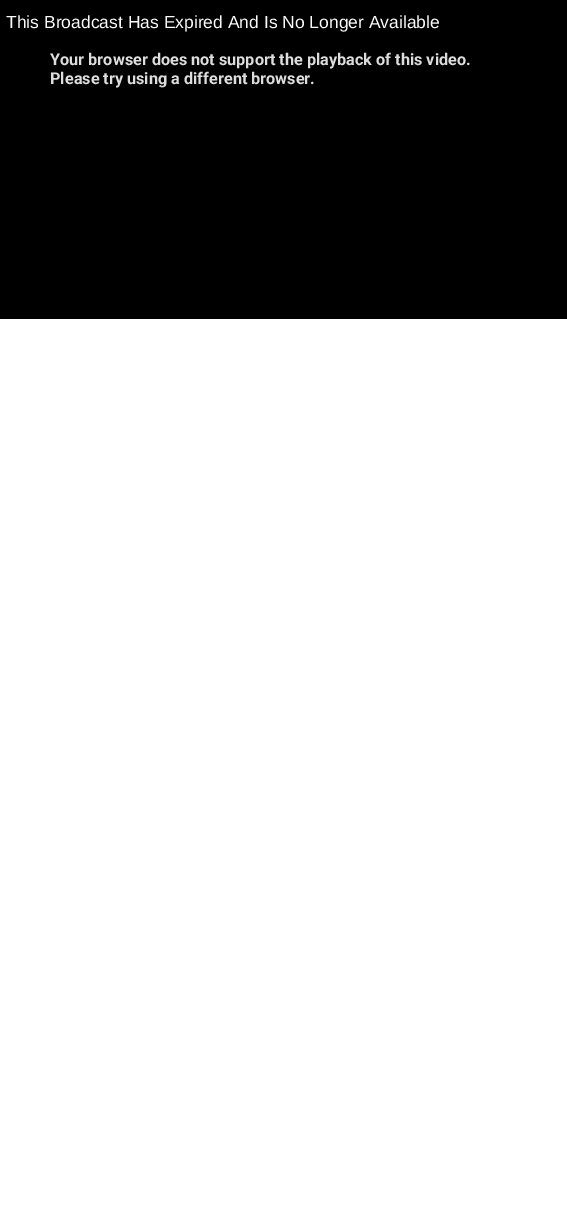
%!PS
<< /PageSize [567 1225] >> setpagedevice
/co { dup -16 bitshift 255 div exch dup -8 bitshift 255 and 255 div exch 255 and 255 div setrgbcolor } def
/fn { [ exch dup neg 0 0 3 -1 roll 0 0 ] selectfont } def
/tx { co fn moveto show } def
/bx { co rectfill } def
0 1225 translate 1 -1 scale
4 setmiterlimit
0 0 567 1225 16#FFFFFF bx
0 0 567 319 16#000000 bx
(This Broadcast Has Expired And Is No Longer Available) 6 28 /LiberationSans-Regular 17.5 16#FAFAFA tx
(Your browser does not support the playback of this video.) 50 65 /Roboto-Bold 16.25 16#DDDDDD tx
(Please try using a different browser.) 50 84 /Roboto-Bold 16.25 16#DDDDDD tx
showpage
